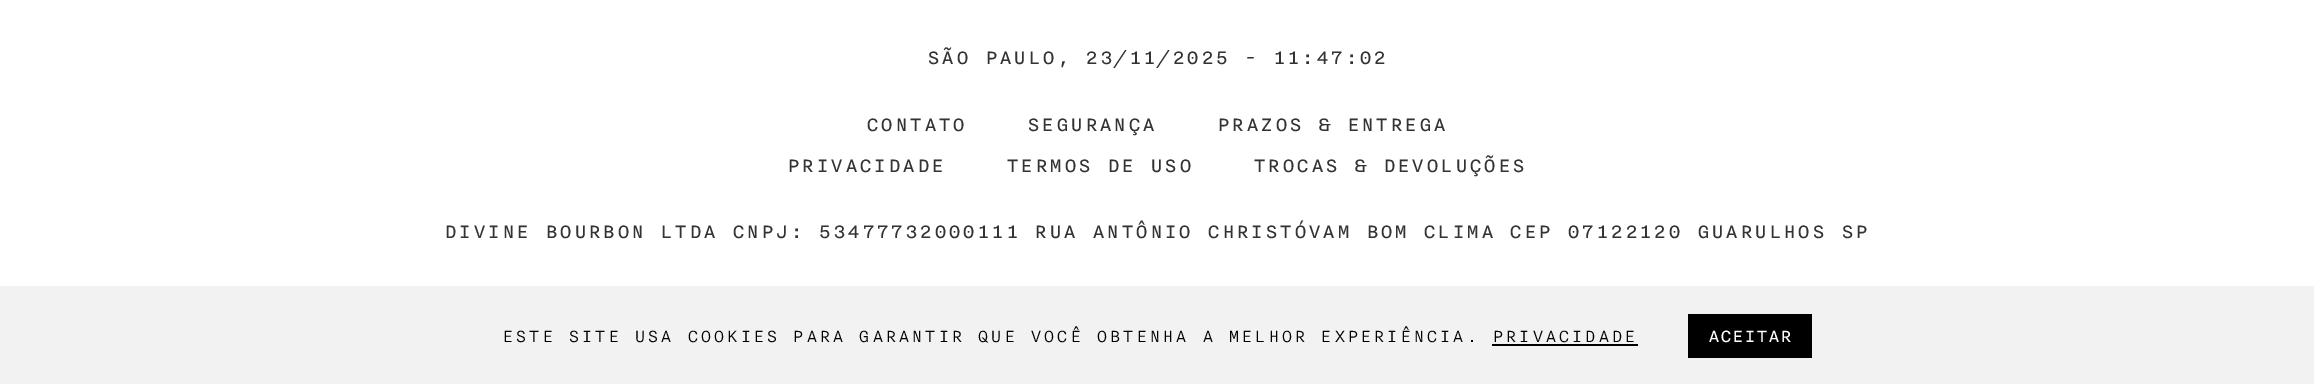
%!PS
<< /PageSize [2314 384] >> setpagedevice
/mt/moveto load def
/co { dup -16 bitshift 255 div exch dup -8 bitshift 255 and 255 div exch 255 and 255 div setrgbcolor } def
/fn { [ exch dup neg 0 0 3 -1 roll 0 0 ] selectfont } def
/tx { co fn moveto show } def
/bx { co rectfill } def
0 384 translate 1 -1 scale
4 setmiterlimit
0 0 2314 384 16#FFFFFF bx
0 286 2314 98 16#F2F2F2 bx
1688 314 124 44 16#000000 bx
1492 344 146 2 16#000000 bx
/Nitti-Regular 22 fn
16#333333 co
927 64 mt 1.2 0 (SÃO PAULO, 23/11/2025 - 11:47:02) ashow
866 131 mt 1.2 0 (CONTATO) ashow
1027 131 mt 1.2 0 (SEGURANÇA) ashow
1217 131 mt 1.2 0 (PRAZOS & ENTREGA) ashow
787 172 mt 1.2 0 (PRIVACIDADE) ashow
1006 172 mt 1.2 0 (TERMOS DE USO) ashow
1253 172 mt 1.2 0 (TROCAS & DEVOLUÇÕES) ashow
444 238 mt 1.2 0 (DIVINE BOURBON LTDA CNPJ: 53477732000111 RUA ANTÔNIO CHRISTÓVAM BOM CLIMA CEP 07122120 GUARULHOS SP) ashow
/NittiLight-Light 20 fn
16#000000 co
502 342 mt 1.2 0 (ESTE SITE USA COOKIES PARA GARANTIR QUE VOCÊ OBTENHA A MELHOR EXPERIÊNCIA. PRIVACIDADE) ashow
(ACEITAR) 1708 342 /Nitti-Regular 20 16#FFFFFF tx
showpage
